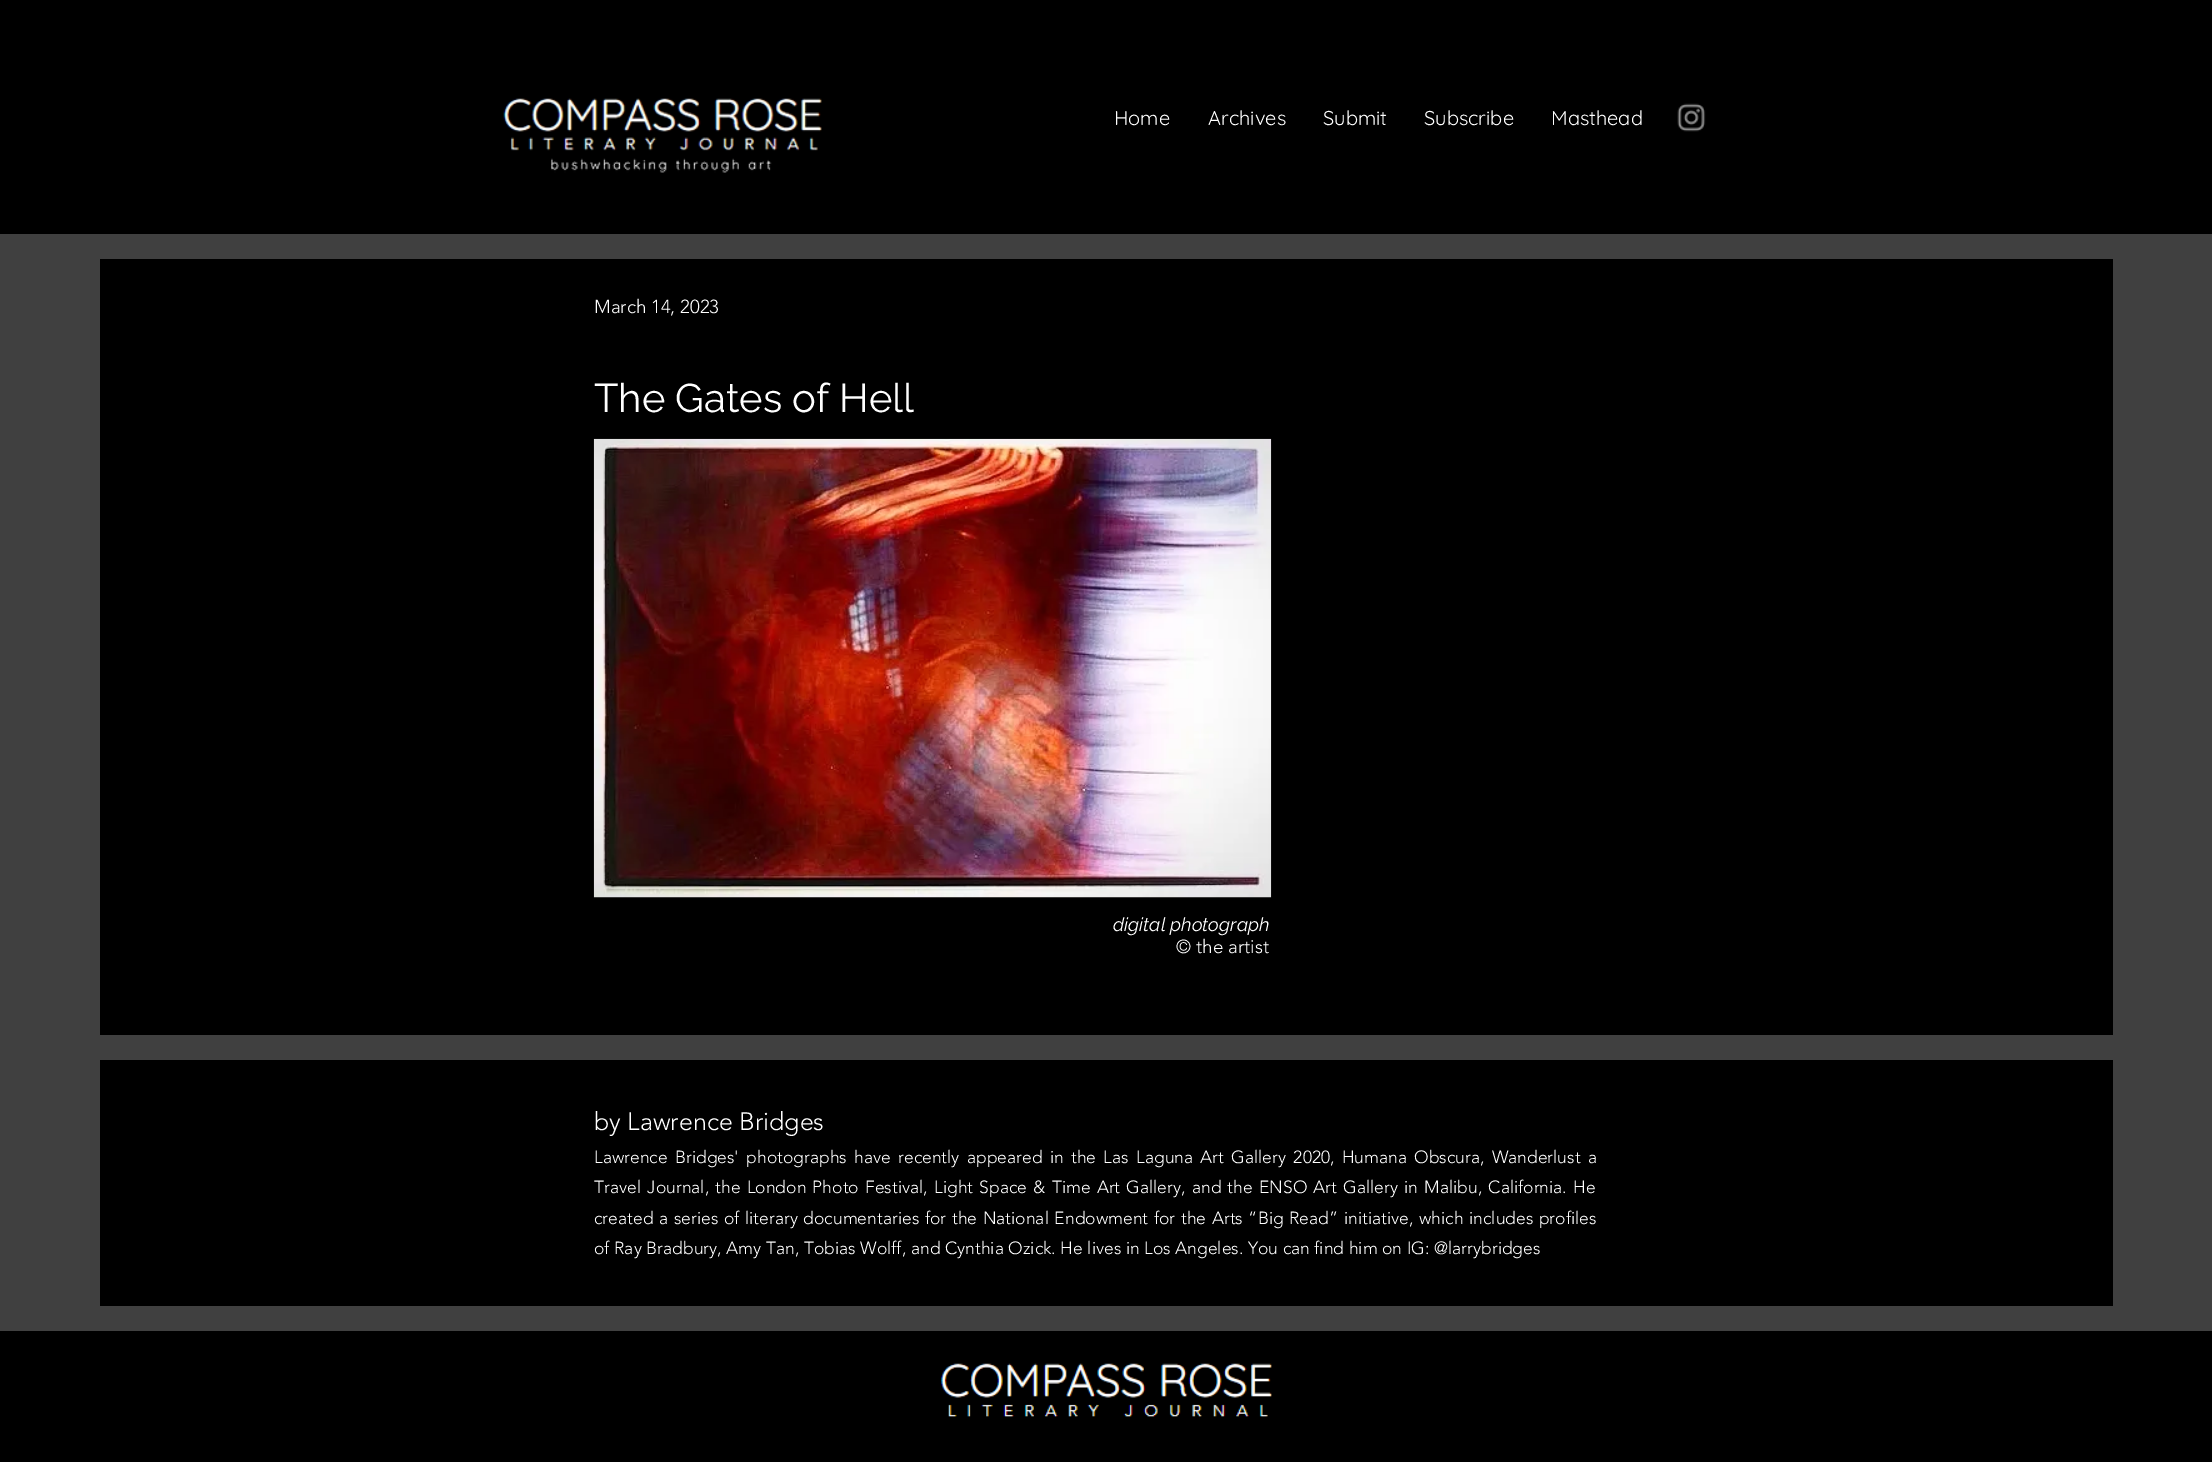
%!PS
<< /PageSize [2212 1462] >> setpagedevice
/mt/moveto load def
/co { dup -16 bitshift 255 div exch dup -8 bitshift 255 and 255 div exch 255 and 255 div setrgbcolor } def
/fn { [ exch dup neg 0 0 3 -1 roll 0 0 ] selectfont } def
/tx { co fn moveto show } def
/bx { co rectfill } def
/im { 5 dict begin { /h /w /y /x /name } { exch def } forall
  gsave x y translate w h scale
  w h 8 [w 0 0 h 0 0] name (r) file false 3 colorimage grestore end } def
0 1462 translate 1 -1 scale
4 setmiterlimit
0 0 2212 1462 16#404040 bx
0 0 2212 234 16#000000 bx
(media/1.raw) 503 98 319 75 im
(media/2.raw) 1677 103 29 29 im
100 259 2013 776 16#000000 bx
(media/3.raw) 593 438 679 460 im
100 1060 2013 246 16#000000 bx
0 1331 2212 131 16#000000 bx
(media/4.raw) 941 1363 331 54 im
(Home) 1114 125 /Quicksand-Regular 20 16#FFFFFF tx
(Archives) 1208 125 /Quicksand-Regular 20 16#FFFFFF tx
(Submit) 1323 125 /Quicksand-Regular 20 16#FFFFFF tx
(Subscribe) 1424 125 /Quicksand-Regular 20 16#FFFFFF tx
(Masthead) 1551 125 /Quicksand-Regular 20 16#FFFFFF tx
(March 14, 2023) 594 313 /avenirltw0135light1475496-Light 18.75 16#FFFFFF tx
(The Gates of Hell) 594 412 /Raleway-Regular 40 16#FFFFFF tx
(digital photograph) 1113 931 /Raleway-Italic 18.75 16#FFFFFF tx
(© the artist) 1176 953 /avenirltw0135light1475496-Light 18.75 16#FFFFFF tx
(by Lawrence Bridges) 594 1130 /avenirltw0135light1475496-Light 25 16#FFFFFF tx
/avenirltw0135light1475496-Light 17.5 fn
594 1163 mt 2.75 0 32 (Lawrence Bridges' photographs have recently appeared in the Las Laguna Art Gallery 2020, Humana Obscura, Wanderlust a) widthshow
594 1193 mt 1.6 0 32 (Travel Journal, the London Photo Festival, Light Space & Time Art Gallery, and the ENSO Art Gallery in Malibu, California. He) widthshow
594 1224 mt 1.1 0 32 (created a series of literary documentaries for the National Endowment for the Arts “Big Read” initiative, which includes profiles) widthshow
(of Ray Bradbury, Amy Tan, Tobias Wolff, and Cynthia Ozick. He lives in Los Angeles. You can find him on IG: @larrybridges) 594 1254 /avenirltw0135light1475496-Light 17.5 16#FFFFFF tx
showpage
